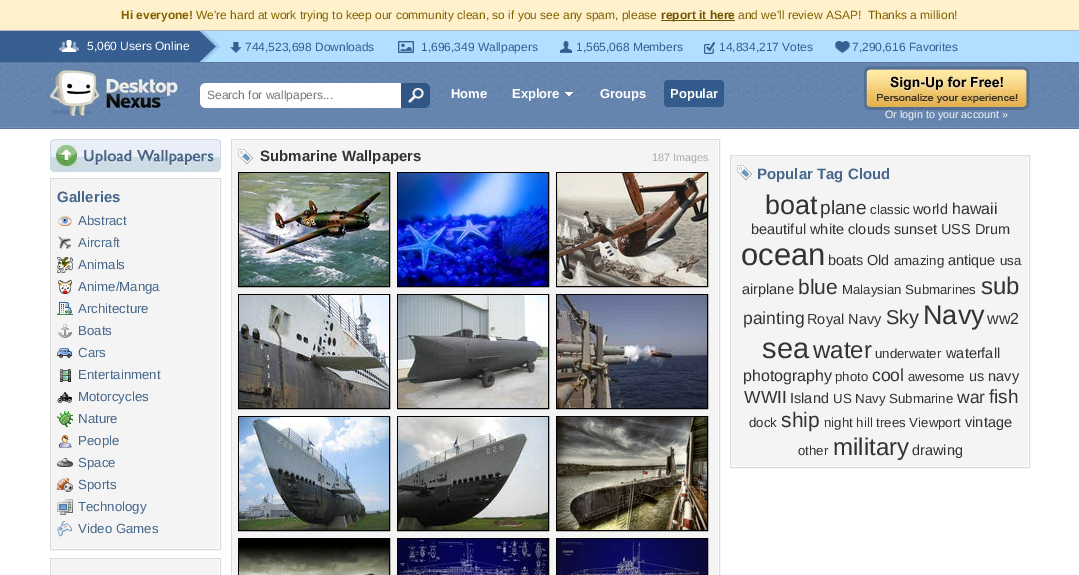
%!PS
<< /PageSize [1079 575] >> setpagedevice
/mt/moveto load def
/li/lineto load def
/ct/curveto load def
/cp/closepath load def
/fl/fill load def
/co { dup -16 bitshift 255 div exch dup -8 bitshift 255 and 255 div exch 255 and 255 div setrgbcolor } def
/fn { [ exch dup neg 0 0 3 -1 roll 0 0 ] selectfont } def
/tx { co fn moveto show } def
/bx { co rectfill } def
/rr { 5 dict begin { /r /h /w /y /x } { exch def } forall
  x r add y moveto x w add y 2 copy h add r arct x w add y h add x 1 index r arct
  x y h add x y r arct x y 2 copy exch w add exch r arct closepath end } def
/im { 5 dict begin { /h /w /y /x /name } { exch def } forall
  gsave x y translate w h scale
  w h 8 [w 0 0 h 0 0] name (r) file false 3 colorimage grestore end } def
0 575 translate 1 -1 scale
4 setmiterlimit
0 0 1079 575 16#FFFFFF bx
0 0 1079 30 16#FFF1CB bx
661 20 74 1 16#705500 bx
220 31 859 31 16#B1DFFF bx
0 30 1079 1 16#B6BAC0 bx
0 31 200 31 16#375E90 bx
(media/1.raw) 59 40 20 12 im
(media/2.raw) 200 31 20 31 im
(media/3.raw) 230 42 12 11 im
(media/4.raw) 398 41 16 12 im
(media/5.raw) 560 41 12 12 im
(media/6.raw) 704 42 11 12 im
(media/7.raw) 835 41 15 12 im
(media/8.raw) 0 62 1079 67 im
(media/9.raw) 50 70 128 46 im
16#FFFFFF co
206 83 mt 417 83 li 417 108 li 206 108 li 202.5 108 200 105.5 200 102 ct 200 89 li 200 85.5 202.5 83 206 83 ct cp fl
16#305686 co
401 83 mt 424 83 li 427.5 83 430 85.5 430 89 ct 430 102 li 430 105.5 427.5 108 424 108 ct 401 108 li cp fl
(media/10.raw) 408 88 16 15 im
(media/11.raw) 564 92 10 5 im
16#335B8B co
664 80 60 27 4 rr fl
(media/12.raw) 864 66 166 44 im
16#DCDCDC co
231.5 139.5 488 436 rectstroke
233 141 485 434 16#F4F4F4 bx
(media/13.raw) 238 149 15 16 im
16#000000 co
238.5 172.5 151 114 rectstroke
(media/14.raw) 239 173 150 113 im
397.5 172.5 151 114 rectstroke
(media/15.raw) 398 173 150 113 im
556.5 172.5 151 114 rectstroke
(media/16.raw) 557 173 150 113 im
238.5 294.5 151 114 rectstroke
(media/17.raw) 239 295 150 113 im
397.5 294.5 151 114 rectstroke
(media/18.raw) 398 295 150 113 im
556.5 294.5 151 114 rectstroke
(media/19.raw) 557 295 150 113 im
238.5 416.5 151 114 rectstroke
(media/20.raw) 239 417 150 113 im
397.5 416.5 151 114 rectstroke
(media/21.raw) 398 417 150 113 im
556.5 416.5 151 114 rectstroke
(media/22.raw) 557 417 150 113 im
238.5 538.5 151 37 rectstroke
(media/23.raw) 239 539 150 36 im
397.5 538.5 151 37 rectstroke
(media/24.raw) 398 539 150 36 im
556.5 538.5 151 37 rectstroke
(media/25.raw) 557 539 150 36 im
(media/26.raw) 50 139 171 33 im
16#DCDCDC co
50.5 178.5 170 371 rectstroke
52 180 167 368 16#F4F4F4 bx
(media/27.raw) 58 216 14 10 im
(media/28.raw) 58 236 13 13 im
(media/29.raw) 57 257 16 16 im
(media/30.raw) 58 280 14 14 im
(media/31.raw) 57 302 16 13 im
(media/32.raw) 58 324 14 14 im
(media/33.raw) 57 348 16 10 im
(media/34.raw) 60 369 11 13 im
(media/35.raw) 57 391 16 12 im
(media/36.raw) 57 411 16 16 im
(media/37.raw) 59 435 13 13 im
(media/38.raw) 57 458 16 9 im
(media/39.raw) 57 478 16 14 im
(media/40.raw) 57 499 16 16 im
(media/41.raw) 57 521 15 16 im
16#DCDCDC co
50.5 558.5 170 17 rectstroke
52 560 167 15 16#F4F4F4 bx
16#DCDCDC co
730.5 155.5 299 312 rectstroke
732 157 296 309 16#F4F4F4 bx
(media/13.raw) 737 165 15 16 im
(Hi everyone!) 121 19 /LiberationSans-Bold 12 16#826200 tx
(We're hard at work trying to keep our community clean, so if you see any spam, please) 196 19 /LiberationSans-Regular 12 16#826200 tx
(report it here) 661 19 /LiberationSans-Bold 12 16#705500 tx
(and we'll review ASAP!  Thanks a million!) 738 19 /LiberationSans-Regular 12 16#826200 tx
(5,060 Users Online) 87 50 /LiberationSans-Regular 12 16#FFFFFF tx
(744,523,698 Downloads) 245 51 /LiberationSans-Regular 12 16#375E90 tx
(1,696,349 Wallpapers) 421 51 /LiberationSans-Regular 12 16#375E90 tx
(1,565,068 Members) 576 51 /LiberationSans-Regular 12 16#375E90 tx
(14,834,217 Votes) 719 51 /LiberationSans-Regular 12 16#375E90 tx
(7,290,616 Favorites) 852 51 /LiberationSans-Regular 12 16#375E90 tx
(Search for wallpapers...) 207 99 /LiberationSans-Regular 12 16#777777 tx
(Home) 451 98 /LiberationSans-Bold 13 16#FFFFFF tx
(Explore) 512 98 /LiberationSans-Bold 13 16#FFFFFF tx
(Groups) 600 98 /LiberationSans-Bold 13 16#FFFFFF tx
(Popular) 670 98 /LiberationSans-Bold 13 16#FFFFFF tx
(Or login to your account ») 885 118 /LiberationSans-Regular 10.75 16#F4F4F4 tx
(Submarine Wallpapers) 260 161 /LiberationSans-Bold 15 16#333333 tx
(187 Images) 652 161 /LiberationSans-Regular 10.75 16#AAAAAA tx
(Galleries) 57 202 /LiberationSans-Bold 15 16#46678A tx
(Abstract) 78 225 /LiberationSans-Regular 13.25 16#46678A tx
(Aircraft) 78 247 /LiberationSans-Regular 13.25 16#46678A tx
(Animals) 78 269 /LiberationSans-Regular 13.25 16#46678A tx
(Anime/Manga) 78 291 /LiberationSans-Regular 13.25 16#46678A tx
(Architecture) 78 313 /LiberationSans-Regular 13.25 16#46678A tx
(Boats) 78 335 /LiberationSans-Regular 13.25 16#46678A tx
(Cars) 78 357 /LiberationSans-Regular 13.25 16#46678A tx
(Entertainment) 78 379 /LiberationSans-Regular 13.25 16#46678A tx
(Motorcycles) 78 401 /LiberationSans-Regular 13.25 16#46678A tx
(Nature) 78 423 /LiberationSans-Regular 13.25 16#46678A tx
(People) 78 445 /LiberationSans-Regular 13.25 16#46678A tx
(Space) 78 467 /LiberationSans-Regular 13.25 16#46678A tx
(Sports) 78 489 /LiberationSans-Regular 13.25 16#46678A tx
(Technology) 78 511 /LiberationSans-Regular 13.25 16#46678A tx
(Video Games) 78 533 /LiberationSans-Regular 13.25 16#46678A tx
(Popular Tag Cloud) 757 179 /LiberationSans-Bold 15 16#46678A tx
(boat) 765 214 /LiberationSans-Regular 27 16#333333 tx
(plane) 820 214 /LiberationSans-Regular 19 16#333333 tx
(classic) 870 214 /LiberationSans-Regular 13.25 16#333333 tx
(world) 913 214 /LiberationSans-Regular 14.5 16#333333 tx
(hawaii) 952 214 /LiberationSans-Regular 16 16#333333 tx
(beautiful) 751 234 /LiberationSans-Regular 14.5 16#333333 tx
(white) 810 234 /LiberationSans-Regular 14.5 16#333333 tx
(clouds) 848 234 /LiberationSans-Regular 14.5 16#333333 tx
(sunset) 894 234 /LiberationSans-Regular 14.5 16#333333 tx
(USS Drum) 941 234 /LiberationSans-Regular 14.5 16#333333 tx
(ocean) 741 265 /LiberationSans-Regular 31 16#333333 tx
(boats) 828 265 /LiberationSans-Regular 14.5 16#333333 tx
(Old) 867 265 /LiberationSans-Regular 14.5 16#333333 tx
(amazing) 894 265 /LiberationSans-Regular 13.25 16#333333 tx
(antique) 948 265 /LiberationSans-Regular 14.5 16#333333 tx
(usa) 1000 265 /LiberationSans-Regular 13.25 16#333333 tx
(airplane) 742 294 /LiberationSans-Regular 14.5 16#333333 tx
(blue) 798 294 /LiberationSans-Regular 21 16#333333 tx
(Malaysian Submarines) 842 294 /LiberationSans-Regular 13.25 16#333333 tx
(sub) 981 294 /LiberationSans-Regular 24 16#333333 tx
(painting) 743 324 /LiberationSans-Regular 17.5 16#333333 tx
(Royal Navy) 807 324 /LiberationSans-Regular 14.5 16#333333 tx
(Sky) 886 324 /LiberationSans-Regular 20 16#333333 tx
(Navy) 923 324 /LiberationSans-Regular 27 16#333333 tx
(ww2) 987 324 /LiberationSans-Regular 16 16#333333 tx
(sea) 762 358 /LiberationSans-Regular 29 16#333333 tx
(water) 813 358 /LiberationSans-Regular 24 16#333333 tx
(underwater) 875 358 /LiberationSans-Regular 13.25 16#333333 tx
(waterfall) 946 358 /LiberationSans-Regular 14.5 16#333333 tx
(photography) 743 381 /LiberationSans-Regular 16 16#333333 tx
(photo) 835 381 /LiberationSans-Regular 13.25 16#333333 tx
(cool) 872 381 /LiberationSans-Regular 17.5 16#333333 tx
(awesome) 908 381 /LiberationSans-Regular 13.25 16#333333 tx
(us navy) 969 381 /LiberationSans-Regular 14.5 16#333333 tx
(WWII) 744 403 /LiberationSans-Regular 17.5 16#333333 tx
(Island) 790 403 /LiberationSans-Regular 14.5 16#333333 tx
(US Navy Submarine) 833 403 /LiberationSans-Regular 13.25 16#333333 tx
(war) 957 403 /LiberationSans-Regular 17.5 16#333333 tx
(fish) 989 403 /LiberationSans-Regular 19 16#333333 tx
(dock) 749 427 /LiberationSans-Regular 13.25 16#333333 tx
(ship) 781 427 /LiberationSans-Regular 21 16#333333 tx
(night hill trees Viewport) 824 427 /LiberationSans-Regular 13.25 16#333333 tx
(vintage) 965 427 /LiberationSans-Regular 14.5 16#333333 tx
(other) 798 455 /LiberationSans-Regular 13.25 16#333333 tx
(military) 833 455 /LiberationSans-Regular 24 16#333333 tx
(drawing) 912 455 /LiberationSans-Regular 14.5 16#333333 tx
showpage
